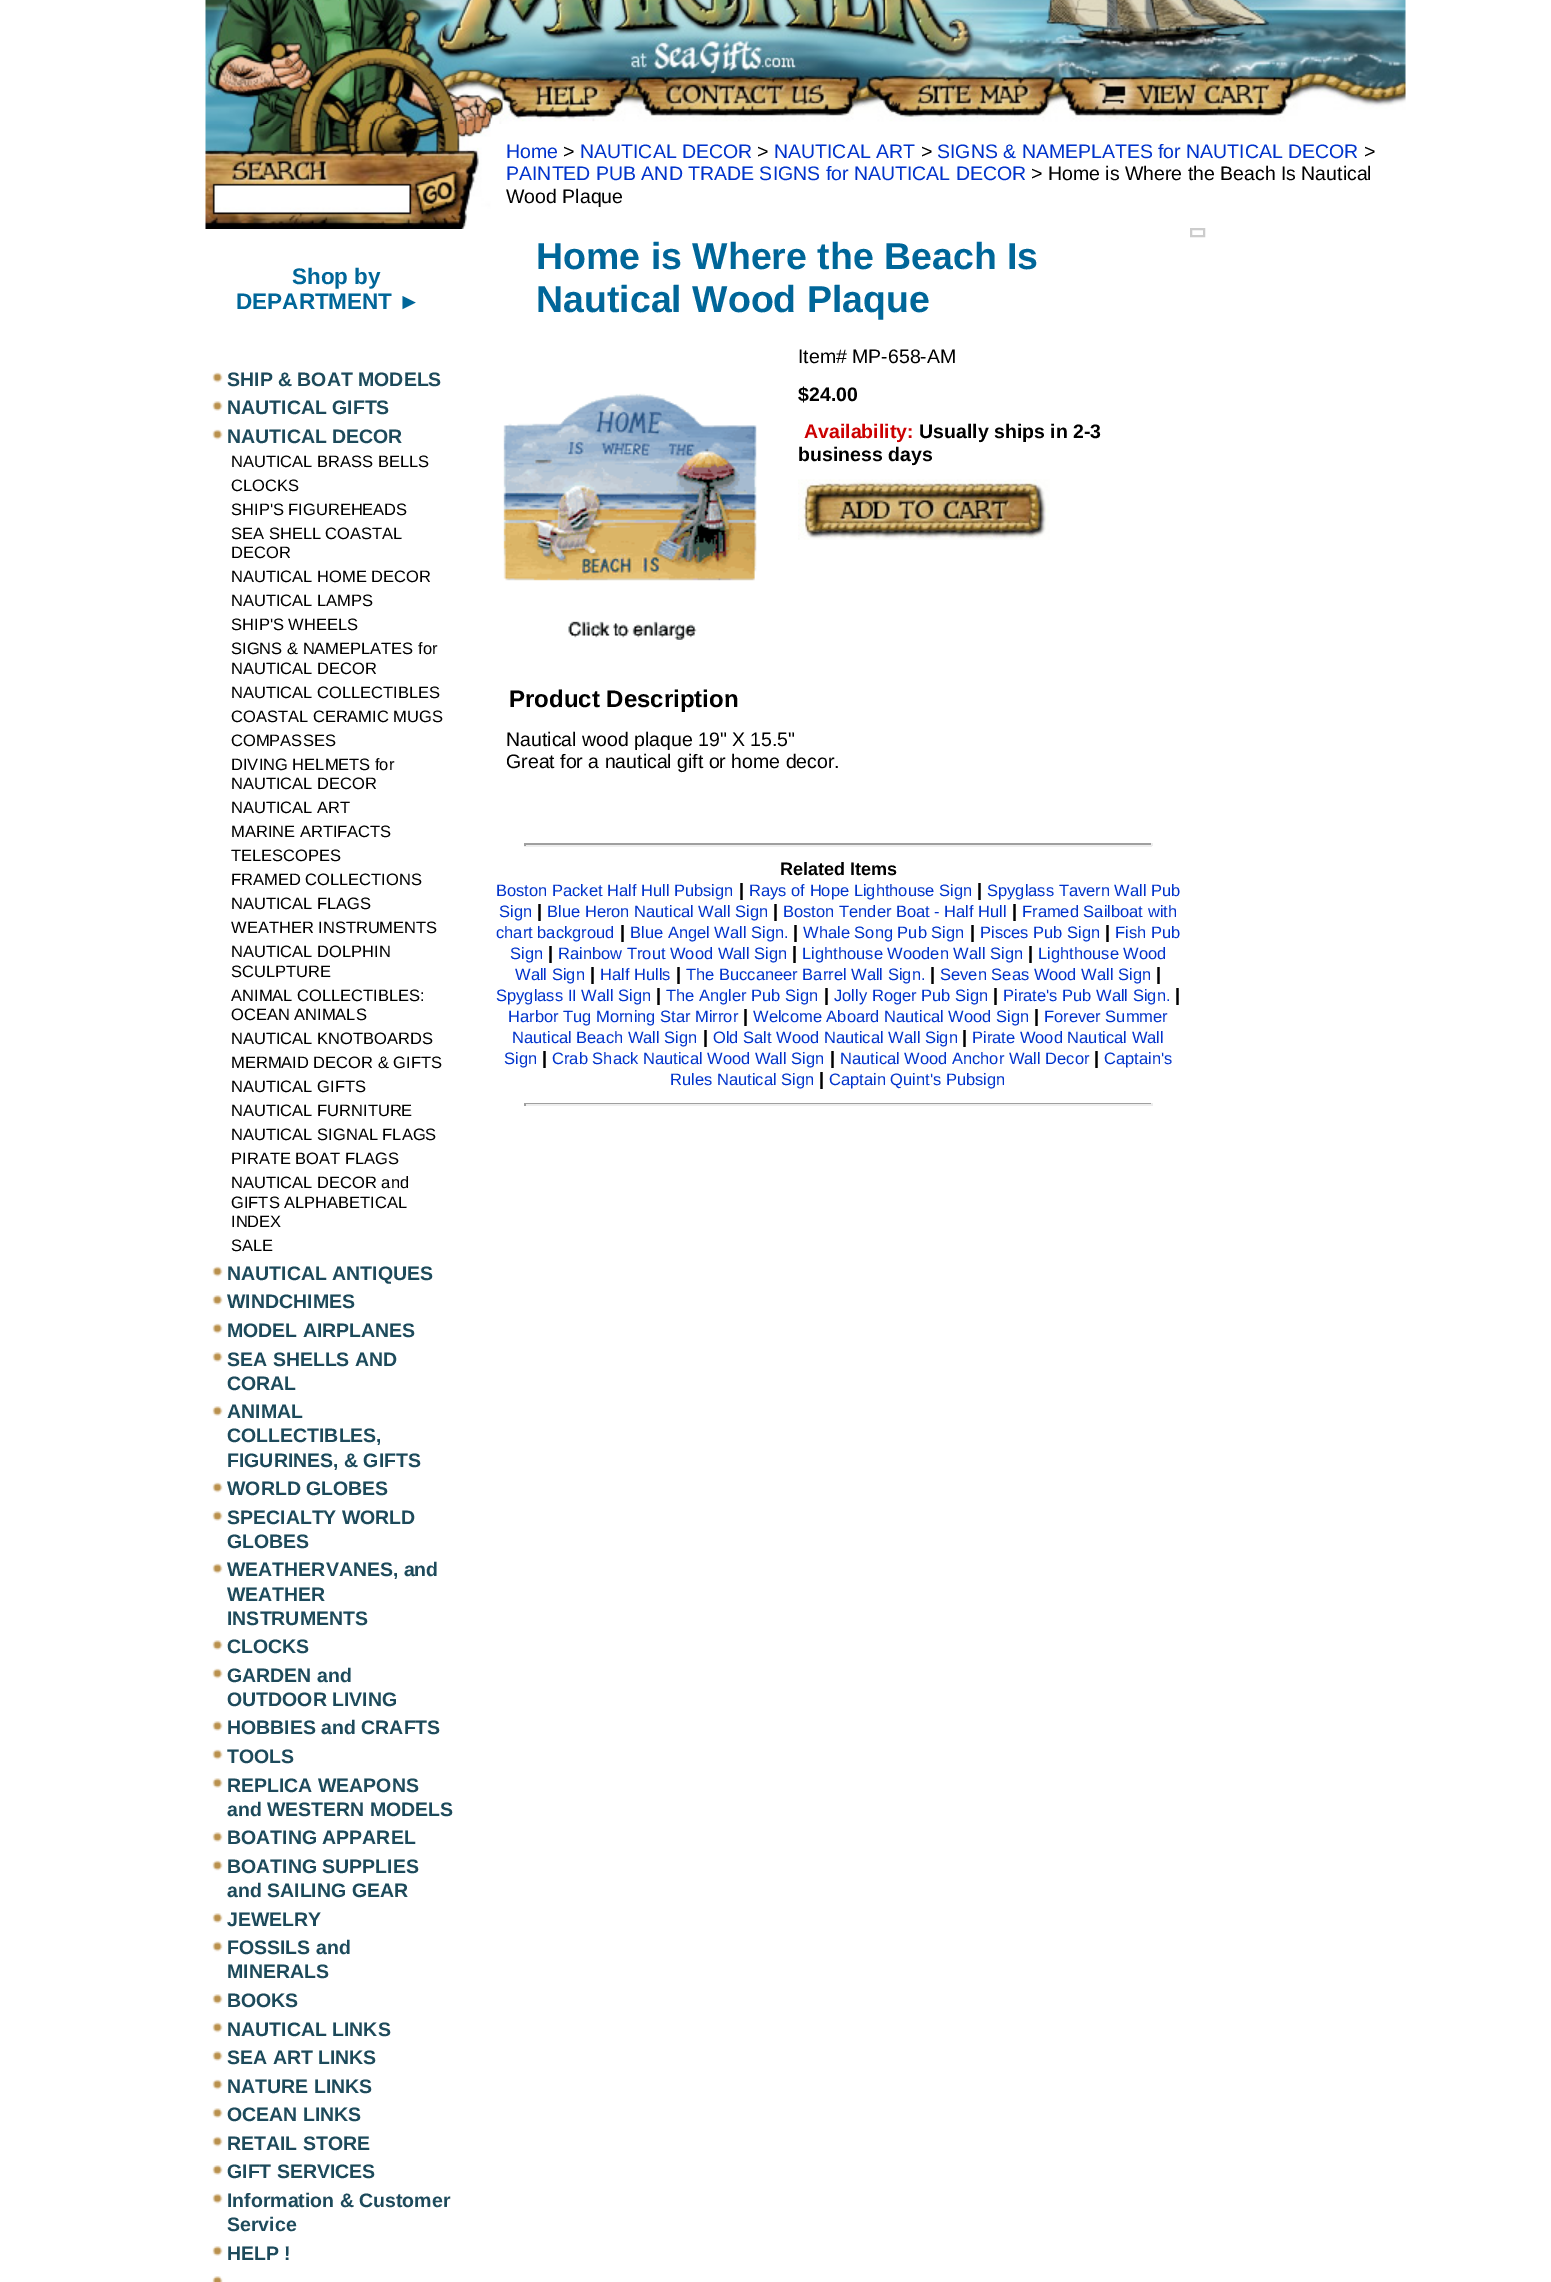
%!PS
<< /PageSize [1551 2282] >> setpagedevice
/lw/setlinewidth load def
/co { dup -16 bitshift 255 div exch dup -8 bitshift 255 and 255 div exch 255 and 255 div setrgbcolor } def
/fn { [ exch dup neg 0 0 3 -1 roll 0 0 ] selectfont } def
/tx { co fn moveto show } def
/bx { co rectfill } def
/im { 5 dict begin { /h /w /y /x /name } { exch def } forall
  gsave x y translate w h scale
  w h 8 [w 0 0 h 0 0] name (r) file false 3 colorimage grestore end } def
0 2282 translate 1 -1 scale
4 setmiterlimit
0 0 1551 2282 16#FFFFFF bx
(media/1.raw) 205 0 1201 124 im
(media/2.raw) 205 124 286 105 im
(media/3.raw) 212 372 11 11 im
(media/4.raw) 212 401 11 10 im
(media/3.raw) 212 429 11 11 im
(media/3.raw) 212 1266 11 11 im
(media/4.raw) 212 1295 11 10 im
(media/3.raw) 212 1323 11 11 im
(media/4.raw) 212 1352 11 10 im
(media/4.raw) 212 1406 11 10 im
(media/3.raw) 212 1482 11 11 im
(media/4.raw) 212 1511 11 10 im
(media/3.raw) 212 1563 11 11 im
(media/4.raw) 212 1640 11 10 im
(media/3.raw) 212 1668 11 11 im
(media/4.raw) 212 1721 11 10 im
(media/3.raw) 212 1749 11 11 im
(media/4.raw) 212 1778 11 10 im
(media/4.raw) 212 1832 11 10 im
(media/3.raw) 212 1860 11 11 im
(media/4.raw) 212 1913 11 10 im
(media/3.raw) 212 1941 11 11 im
(media/4.raw) 212 1994 11 10 im
(media/3.raw) 212 2022 11 11 im
(media/4.raw) 212 2051 11 10 im
(media/3.raw) 212 2079 11 11 im
(media/4.raw) 212 2108 11 10 im
(media/3.raw) 212 2136 11 11 im
(media/4.raw) 212 2165 11 10 im
(media/3.raw) 212 2193 11 11 im
(media/4.raw) 212 2246 11 10 im
(media/5.raw) 212 2276 11 6 im
16#CCCCCC co
2 lw
1191 229 13 7 rectstroke
(media/6.raw) 503 393 254 247 im
(media/7.raw) 798 479 252 61 im
524 843 628 2 16#9F9F9F bx
1151 843 2 3 16#EEEEEE bx
524 845 628 2 16#EEEEEE bx
524 843 2 3 16#9F9F9F bx
524 1103 628 1 16#9F9F9F bx
1151 1103 2 3 16#EEEEEE bx
524 1104 628 2 16#EEEEEE bx
524 1103 2 3 16#9F9F9F bx
(Shop by) 292 284 /LiberationSans-Bold 22.5 16#006699 tx
(DEPARTMENT ►) 236 309 /LiberationSans-Bold 22.5 16#006699 tx
(SHIP & BOAT MODELS) 227 386 /LiberationSans-Bold 19.5 16#1D4A5B tx
(NAUTICAL GIFTS) 227 414 /LiberationSans-Bold 19.5 16#1D4A5B tx
(NAUTICAL DECOR) 227 443 /LiberationSans-Bold 19.5 16#1D4A5B tx
(NAUTICAL BRASS BELLS) 231 467 /LiberationSans-Regular 16.5 16#000000 tx
(CLOCKS) 231 491 /LiberationSans-Regular 16.5 16#000000 tx
(SHIP'S FIGUREHEADS) 231 515 /LiberationSans-Regular 16.5 16#000000 tx
(SEA SHELL COASTAL) 231 539 /LiberationSans-Regular 16.5 16#000000 tx
(DECOR) 231 558 /LiberationSans-Regular 16.5 16#000000 tx
(NAUTICAL HOME DECOR) 231 582 /LiberationSans-Regular 16.5 16#000000 tx
(NAUTICAL LAMPS) 231 606 /LiberationSans-Regular 16.5 16#000000 tx
(SHIP'S WHEELS) 231 630 /LiberationSans-Regular 16.5 16#000000 tx
(SIGNS & NAMEPLATES for) 231 654 /LiberationSans-Regular 16.5 16#000000 tx
(NAUTICAL DECOR) 231 674 /LiberationSans-Regular 16.5 16#000000 tx
(NAUTICAL COLLECTIBLES) 231 698 /LiberationSans-Regular 16.5 16#000000 tx
(COASTAL CERAMIC MUGS) 231 722 /LiberationSans-Regular 16.5 16#000000 tx
(COMPASSES) 231 746 /LiberationSans-Regular 16.5 16#000000 tx
(DIVING HELMETS for) 231 770 /LiberationSans-Regular 16.5 16#000000 tx
(NAUTICAL DECOR) 231 789 /LiberationSans-Regular 16.5 16#000000 tx
(NAUTICAL ART) 231 813 /LiberationSans-Regular 16.5 16#000000 tx
(MARINE ARTIFACTS) 231 837 /LiberationSans-Regular 16.5 16#000000 tx
(TELESCOPES) 231 861 /LiberationSans-Regular 16.5 16#000000 tx
(FRAMED COLLECTIONS) 231 885 /LiberationSans-Regular 16.5 16#000000 tx
(NAUTICAL FLAGS) 231 909 /LiberationSans-Regular 16.5 16#000000 tx
(WEATHER INSTRUMENTS) 231 933 /LiberationSans-Regular 16.5 16#000000 tx
(NAUTICAL DOLPHIN) 231 957 /LiberationSans-Regular 16.5 16#000000 tx
(SCULPTURE) 231 977 /LiberationSans-Regular 16.5 16#000000 tx
(ANIMAL COLLECTIBLES:) 231 1001 /LiberationSans-Regular 16.5 16#000000 tx
(OCEAN ANIMALS) 231 1020 /LiberationSans-Regular 16.5 16#000000 tx
(NAUTICAL KNOTBOARDS) 231 1044 /LiberationSans-Regular 16.5 16#000000 tx
(MERMAID DECOR & GIFTS) 231 1068 /LiberationSans-Regular 16.5 16#000000 tx
(NAUTICAL GIFTS) 231 1092 /LiberationSans-Regular 16.5 16#000000 tx
(NAUTICAL FURNITURE) 231 1116 /LiberationSans-Regular 16.5 16#000000 tx
(NAUTICAL SIGNAL FLAGS) 231 1140 /LiberationSans-Regular 16.5 16#000000 tx
(PIRATE BOAT FLAGS) 231 1164 /LiberationSans-Regular 16.5 16#000000 tx
(NAUTICAL DECOR and) 231 1188 /LiberationSans-Regular 16.5 16#000000 tx
(GIFTS ALPHABETICAL) 231 1208 /LiberationSans-Regular 16.5 16#000000 tx
(INDEX) 231 1227 /LiberationSans-Regular 16.5 16#000000 tx
(SALE) 231 1251 /LiberationSans-Regular 16.5 16#000000 tx
(NAUTICAL ANTIQUES) 227 1280 /LiberationSans-Bold 19.5 16#1D4A5B tx
(WINDCHIMES) 227 1308 /LiberationSans-Bold 19.5 16#1D4A5B tx
(MODEL AIRPLANES) 227 1337 /LiberationSans-Bold 19.5 16#1D4A5B tx
(SEA SHELLS AND) 227 1366 /LiberationSans-Bold 19.5 16#1D4A5B tx
(CORAL) 227 1390 /LiberationSans-Bold 19.5 16#1D4A5B tx
(ANIMAL) 227 1418 /LiberationSans-Bold 19.5 16#1D4A5B tx
(COLLECTIBLES,) 227 1442 /LiberationSans-Bold 19.5 16#1D4A5B tx
(FIGURINES, & GIFTS) 227 1467 /LiberationSans-Bold 19.5 16#1D4A5B tx
(WORLD GLOBES) 227 1495 /LiberationSans-Bold 19.5 16#1D4A5B tx
(SPECIALTY WORLD) 227 1524 /LiberationSans-Bold 19.5 16#1D4A5B tx
(GLOBES) 227 1548 /LiberationSans-Bold 19.5 16#1D4A5B tx
(WEATHERVANES, and) 227 1576 /LiberationSans-Bold 19.5 16#1D4A5B tx
(WEATHER) 227 1601 /LiberationSans-Bold 19.5 16#1D4A5B tx
(INSTRUMENTS) 227 1625 /LiberationSans-Bold 19.5 16#1D4A5B tx
(CLOCKS) 227 1653 /LiberationSans-Bold 19.5 16#1D4A5B tx
(GARDEN and) 227 1682 /LiberationSans-Bold 19.5 16#1D4A5B tx
(OUTDOOR LIVING) 227 1706 /LiberationSans-Bold 19.5 16#1D4A5B tx
(HOBBIES and CRAFTS) 227 1734 /LiberationSans-Bold 19.5 16#1D4A5B tx
(TOOLS) 227 1763 /LiberationSans-Bold 19.5 16#1D4A5B tx
(REPLICA WEAPONS) 227 1792 /LiberationSans-Bold 19.5 16#1D4A5B tx
(and WESTERN MODELS) 227 1816 /LiberationSans-Bold 19.5 16#1D4A5B tx
(BOATING APPAREL) 227 1844 /LiberationSans-Bold 19.5 16#1D4A5B tx
(BOATING SUPPLIES) 227 1873 /LiberationSans-Bold 19.5 16#1D4A5B tx
(and SAILING GEAR) 227 1897 /LiberationSans-Bold 19.5 16#1D4A5B tx
(JEWELRY) 227 1926 /LiberationSans-Bold 19.5 16#1D4A5B tx
(FOSSILS and) 227 1954 /LiberationSans-Bold 19.5 16#1D4A5B tx
(MINERALS) 227 1978 /LiberationSans-Bold 19.5 16#1D4A5B tx
(BOOKS) 227 2007 /LiberationSans-Bold 19.5 16#1D4A5B tx
(NAUTICAL LINKS) 227 2036 /LiberationSans-Bold 19.5 16#1D4A5B tx
(SEA ART LINKS) 227 2064 /LiberationSans-Bold 19.5 16#1D4A5B tx
(NATURE LINKS) 227 2093 /LiberationSans-Bold 19.5 16#1D4A5B tx
(OCEAN LINKS) 227 2121 /LiberationSans-Bold 19.5 16#1D4A5B tx
(RETAIL STORE) 227 2150 /LiberationSans-Bold 19.5 16#1D4A5B tx
(GIFT SERVICES) 227 2178 /LiberationSans-Bold 19.5 16#1D4A5B tx
(Information & Customer) 227 2207 /LiberationSans-Bold 19.5 16#1D4A5B tx
(Service) 227 2231 /LiberationSans-Bold 19.5 16#1D4A5B tx
(HELP !) 227 2260 /LiberationSans-Bold 19.5 16#1D4A5B tx
(Home) 506 158 /LiberationSans-Regular 19.5 16#0033CC tx
(>) 563 158 /LiberationSans-Regular 19.5 16#000000 tx
(NAUTICAL DECOR) 580 158 /LiberationSans-Regular 19.5 16#0033CC tx
(>) 757 158 /LiberationSans-Regular 19.5 16#000000 tx
(NAUTICAL ART) 774 158 /LiberationSans-Regular 19.5 16#0033CC tx
(>) 921 158 /LiberationSans-Regular 19.5 16#000000 tx
(SIGNS & NAMEPLATES for NAUTICAL DECOR) 937 158 /LiberationSans-Regular 19.5 16#0033CC tx
(>) 1364 158 /LiberationSans-Regular 19.5 16#000000 tx
(PAINTED PUB AND TRADE SIGNS for NAUTICAL DECOR) 506 180 /LiberationSans-Regular 19.5 16#0033CC tx
(> Home is Where the Beach Is Nautical) 1031 180 /LiberationSans-Regular 19.5 16#000000 tx
(Wood Plaque) 506 203 /LiberationSans-Regular 19.5 16#000000 tx
(Home is Where the Beach Is) 536 269 /LiberationSans-Bold 37.5 16#006699 tx
(Nautical Wood Plaque) 536 312 /LiberationSans-Bold 37.5 16#006699 tx
(Item# MP-658-AM) 798 363 /LiberationSans-Regular 19.5 16#000000 tx
($24.00) 798 401 /LiberationSans-Bold 19.5 16#000000 tx
(Availability:) 804 438 /LiberationSans-Bold 19.5 16#CC0001 tx
(Usually ships in 2-3) 919 438 /LiberationSans-Bold 19.5 16#000000 tx
(business days) 798 461 /LiberationSans-Bold 19.5 16#000000 tx
(Product Description) 509 707 /LiberationSans-Bold 24 16#000000 tx
(Nautical wood plaque 19" X 15.5") 506 746 /LiberationSans-Regular 19.5 16#000000 tx
(Great for a nautical gift or home decor.) 506 768 /LiberationSans-Regular 19.5 16#000000 tx
(Related Items) 780 875 /LiberationSans-Bold 18 16#000000 tx
(Boston Packet Half Hull Pubsign) 496 896 /LiberationSans-Regular 16.5 16#0033CC tx
(|) 739 896 /LiberationSans-Bold 18 16#000000 tx
(Rays of Hope Lighthouse Sign) 749 896 /LiberationSans-Regular 16.5 16#0033CC tx
(|) 977 896 /LiberationSans-Bold 18 16#000000 tx
(Spyglass Tavern Wall Pub) 987 896 /LiberationSans-Regular 16.5 16#0033CC tx
(Sign) 499 917 /LiberationSans-Regular 16.5 16#0033CC tx
(|) 537 917 /LiberationSans-Bold 18 16#000000 tx
(Blue Heron Nautical Wall Sign) 547 917 /LiberationSans-Regular 16.5 16#0033CC tx
(|) 773 917 /LiberationSans-Bold 18 16#000000 tx
(Boston Tender Boat - Half Hull) 783 917 /LiberationSans-Regular 16.5 16#0033CC tx
(|) 1012 917 /LiberationSans-Bold 18 16#000000 tx
(Framed Sailboat with) 1022 917 /LiberationSans-Regular 16.5 16#0033CC tx
(chart backgroud) 496 938 /LiberationSans-Regular 16.5 16#0033CC tx
(|) 620 938 /LiberationSans-Bold 18 16#000000 tx
(Blue Angel Wall Sign.) 630 938 /LiberationSans-Regular 16.5 16#0033CC tx
(|) 793 938 /LiberationSans-Bold 18 16#000000 tx
(Whale Song Pub Sign) 803 938 /LiberationSans-Regular 16.5 16#0033CC tx
(|) 970 938 /LiberationSans-Bold 18 16#000000 tx
(Pisces Pub Sign) 980 938 /LiberationSans-Regular 16.5 16#0033CC tx
(|) 1105 938 /LiberationSans-Bold 18 16#000000 tx
(Fish Pub) 1115 938 /LiberationSans-Regular 16.5 16#0033CC tx
(Sign) 510 959 /LiberationSans-Regular 16.5 16#0033CC tx
(|) 548 959 /LiberationSans-Bold 18 16#000000 tx
(Rainbow Trout Wood Wall Sign) 558 959 /LiberationSans-Regular 16.5 16#0033CC tx
(|) 792 959 /LiberationSans-Bold 18 16#000000 tx
(Lighthouse Wooden Wall Sign) 802 959 /LiberationSans-Regular 16.5 16#0033CC tx
(|) 1028 959 /LiberationSans-Bold 18 16#000000 tx
(Lighthouse Wood) 1038 959 /LiberationSans-Regular 16.5 16#0033CC tx
(Wall Sign) 515 980 /LiberationSans-Regular 16.5 16#0033CC tx
(|) 590 980 /LiberationSans-Bold 18 16#000000 tx
(Half Hulls) 600 980 /LiberationSans-Regular 16.5 16#0033CC tx
(|) 676 980 /LiberationSans-Bold 18 16#000000 tx
(The Buccaneer Barrel Wall Sign.) 686 980 /LiberationSans-Regular 16.5 16#0033CC tx
(|) 930 980 /LiberationSans-Bold 18 16#000000 tx
(Seven Seas Wood Wall Sign) 940 980 /LiberationSans-Regular 16.5 16#0033CC tx
(|) 1156 980 /LiberationSans-Bold 18 16#000000 tx
(Spyglass II Wall Sign) 496 1001 /LiberationSans-Regular 16.5 16#0033CC tx
(|) 656 1001 /LiberationSans-Bold 18 16#000000 tx
(The Angler Pub Sign) 666 1001 /LiberationSans-Regular 16.5 16#0033CC tx
(|) 824 1001 /LiberationSans-Bold 18 16#000000 tx
(Jolly Roger Pub Sign) 834 1001 /LiberationSans-Regular 16.5 16#0033CC tx
(|) 993 1001 /LiberationSans-Bold 18 16#000000 tx
(Pirate's Pub Wall Sign.) 1003 1001 /LiberationSans-Regular 16.5 16#0033CC tx
(|) 1175 1001 /LiberationSans-Bold 18 16#000000 tx
(Harbor Tug Morning Star Mirror) 508 1022 /LiberationSans-Regular 16.5 16#0033CC tx
(|) 743 1022 /LiberationSans-Bold 18 16#000000 tx
(Welcome Aboard Nautical Wood Sign) 753 1022 /LiberationSans-Regular 16.5 16#0033CC tx
(|) 1034 1022 /LiberationSans-Bold 18 16#000000 tx
(Forever Summer) 1044 1022 /LiberationSans-Regular 16.5 16#0033CC tx
(Nautical Beach Wall Sign) 512 1043 /LiberationSans-Regular 16.5 16#0033CC tx
(|) 703 1043 /LiberationSans-Bold 18 16#000000 tx
(Old Salt Wood Nautical Wall Sign) 713 1043 /LiberationSans-Regular 16.5 16#0033CC tx
(|) 962 1043 /LiberationSans-Bold 18 16#000000 tx
(Pirate Wood Nautical Wall) 972 1043 /LiberationSans-Regular 16.5 16#0033CC tx
(Sign) 504 1064 /LiberationSans-Regular 16.5 16#0033CC tx
(|) 542 1064 /LiberationSans-Bold 18 16#000000 tx
(Crab Shack Nautical Wood Wall Sign) 552 1064 /LiberationSans-Regular 16.5 16#0033CC tx
(|) 830 1064 /LiberationSans-Bold 18 16#000000 tx
(Nautical Wood Anchor Wall Decor) 840 1064 /LiberationSans-Regular 16.5 16#0033CC tx
(|) 1094 1064 /LiberationSans-Bold 18 16#000000 tx
(Captain's) 1104 1064 /LiberationSans-Regular 16.5 16#0033CC tx
(Rules Nautical Sign) 670 1085 /LiberationSans-Regular 16.5 16#0033CC tx
(|) 819 1085 /LiberationSans-Bold 18 16#000000 tx
(Captain Quint's Pubsign) 829 1085 /LiberationSans-Regular 16.5 16#0033CC tx
showpage
